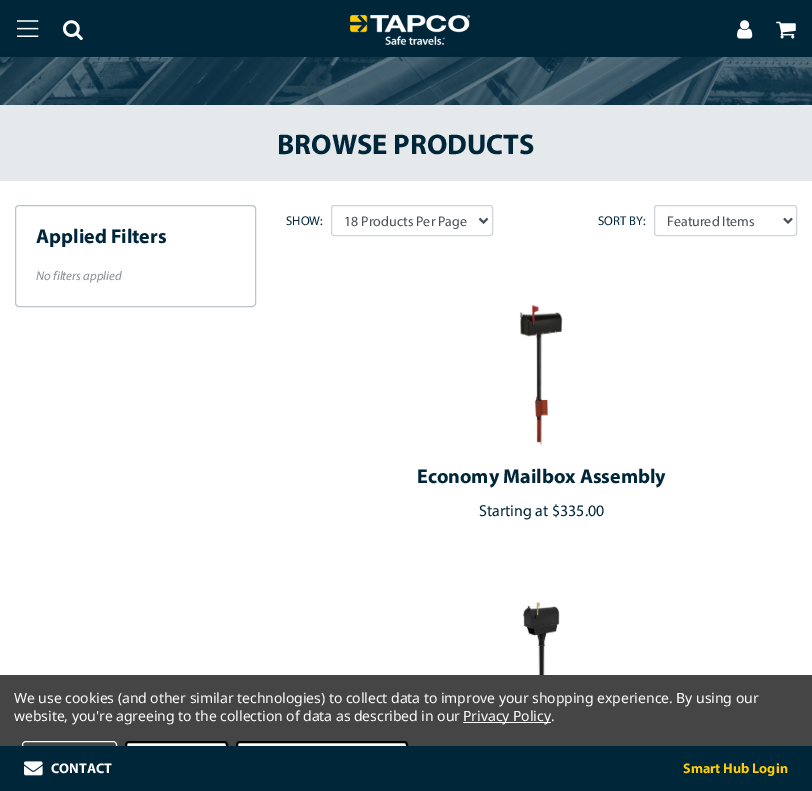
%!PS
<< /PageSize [812 791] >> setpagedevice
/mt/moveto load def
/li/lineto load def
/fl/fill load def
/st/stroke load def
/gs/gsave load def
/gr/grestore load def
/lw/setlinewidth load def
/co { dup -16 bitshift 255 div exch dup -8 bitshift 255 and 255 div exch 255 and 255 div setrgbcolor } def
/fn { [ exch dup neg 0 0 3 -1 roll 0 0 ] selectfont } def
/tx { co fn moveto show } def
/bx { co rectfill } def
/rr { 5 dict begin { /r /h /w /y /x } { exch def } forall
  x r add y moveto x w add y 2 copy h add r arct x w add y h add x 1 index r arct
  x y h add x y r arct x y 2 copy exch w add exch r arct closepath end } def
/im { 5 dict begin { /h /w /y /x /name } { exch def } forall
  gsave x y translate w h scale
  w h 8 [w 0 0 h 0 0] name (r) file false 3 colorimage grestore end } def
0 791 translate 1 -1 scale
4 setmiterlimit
0 0 812 791 16#FFFFFF bx
0 0 812 57 16#00263A bx
(media/1.raw) 17 20 22 17 im
(media/2.raw) 63 20 20 20 im
(media/3.raw) 350 15 120 30 im
(media/4.raw) 737 20 16 19 im
(media/5.raw) 776 21 20 18 im
(media/6.raw) 0 57 812 48 im
0 105 812 76 16#E5E9EB bx
16#BAC4CA co
15.5 205.5 240 101 3.5 rr st
16#CED4DA co
331.5 205.5 161 30 2.5 rr st
16#495057 co
2 lw
479.5 218.5 mt 483.5 222.5 li 487.5 218.5 li st
16#CED4DA co
1 lw
654.5 205.5 142 30 2.5 rr st
16#495057 co
2 lw
784 218.5 mt 788 222.5 li 792 218.5 li st
(media/7.raw) 519 304 44 142 im
(media/8.raw) 523 602 37 73 im
0 675 812 71 16#454545 bx
463 722 88 1 16#FFFFFF bx
1 lw
22.5 741.5 94 35 3.5 rr st
126 742 101 34 3 rr gs fl gr
16#000000 co
2 lw
st
16#FFFFFF co
237 742 170 34 3 rr gs fl gr
16#000000 co
st
0 746 812 45 16#00263A bx
(media/9.raw) 24 761 19 15 im
(BROWSE PRODUCTS) 277 154 /Myriad-Bold 28.5 16#00263A tx
(Applied Filters) 36 243 /Myriad-Bold 20 16#00263A tx
(No filters applied) 36 280 /Myriad-Italic 12.75 16#868E96 tx
(SHOW:) 286 225 /Myriad-Regular 12.75 16#00263A tx
(18 Products Per Page) 344 226 /Myriad-Regular 14 16#495057 tx
(SORT BY:) 598 225 /Myriad-Regular 12.75 16#00263A tx
(Featured Items) 667 226 /Myriad-Regular 14 16#495057 tx
(Economy Mailbox Assembly) 417 483 /Myriad-Bold 20 16#00263A tx
(Starting at $335.00) 479 516 /Myriad-Regular 16 16#00263A tx
/NotoSans-Regular 14 fn
16#FFFFFF co
14 703 mt -.05 0 (We use cookies \(and other similar technologies\) to collect data to improve your shopping experience. By using our) ashow
14 721 mt -.05 0 (website, you're agreeing to the collection of data as described in our) ashow
463 721 mt -.05 0 (Privacy Policy.) ashow
(CONTACT) 51 773 /Myriad-Bold 14 16#FFFFFF tx
(Smart Hub Login) 683 773 /Myriad-Bold 14 16#FFCB05 tx
showpage
